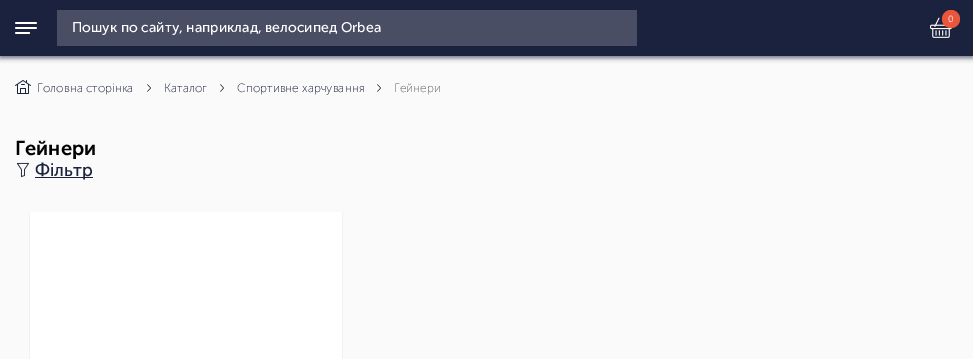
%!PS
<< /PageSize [973 359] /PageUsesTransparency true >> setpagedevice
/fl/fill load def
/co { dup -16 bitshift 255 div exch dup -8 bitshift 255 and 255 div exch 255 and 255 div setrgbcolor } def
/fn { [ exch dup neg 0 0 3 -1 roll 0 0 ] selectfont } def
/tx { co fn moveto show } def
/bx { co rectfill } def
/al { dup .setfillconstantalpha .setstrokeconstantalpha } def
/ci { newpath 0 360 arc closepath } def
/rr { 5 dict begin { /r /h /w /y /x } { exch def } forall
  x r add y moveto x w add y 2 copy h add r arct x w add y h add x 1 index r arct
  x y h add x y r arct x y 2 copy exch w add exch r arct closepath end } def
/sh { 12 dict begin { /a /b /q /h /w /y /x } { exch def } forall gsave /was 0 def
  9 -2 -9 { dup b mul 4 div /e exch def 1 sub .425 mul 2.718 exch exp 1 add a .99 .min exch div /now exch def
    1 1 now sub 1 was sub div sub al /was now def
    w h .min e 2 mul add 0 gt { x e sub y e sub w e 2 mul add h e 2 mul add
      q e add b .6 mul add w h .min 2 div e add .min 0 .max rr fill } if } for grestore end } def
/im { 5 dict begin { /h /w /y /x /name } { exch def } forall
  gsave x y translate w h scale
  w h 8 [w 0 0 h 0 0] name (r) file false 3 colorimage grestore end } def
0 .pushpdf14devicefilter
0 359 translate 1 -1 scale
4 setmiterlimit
0 0 973 359 16#FAFAFA bx
16#1B223D co
0 2 973 56 0 2.5 .65 sh
0 0 973 56 16#1B223D bx
(media/1.raw) 15 22 22 12 im
(media/2.raw) 930 17 22 21 im
16#EA563C co
951 19 9 ci fl
57 10 580 36 16#494E64 bx
(media/3.raw) 15 80 16 14 im
(media/4.raw) 147 84 4 8 im
(media/4.raw) 220 84 4 8 im
(media/4.raw) 377 84 4 8 im
(media/5.raw) 16 162 13 15 im
35 177 58 1 16#1B223D bx
30 212 312 147 16#FFFFFF bx
342 212 1 147 16#F1F1F1 bx
29 212 1 147 16#F1F1F1 bx
(0) 948 22 /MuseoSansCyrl-Light 9 16#FFFFFF tx
(Пошук по сайту, наприклад, велосипед Orbea) 72 32 /MuseoSansCyrl-Regular 14 16#FFFFFF tx
(Головна сторінка) 37 92 /MuseoSansCyrl-ExtraLight 12 16#1B223D tx
(Каталог) 164 92 /MuseoSansCyrl-ExtraLight 12 16#1B223D tx
(Спортивне харчування) 237 92 /MuseoSansCyrl-ExtraLight 12 16#1B223D tx
(Гейнери) 394 92 /MuseoSansCyrl-ExtraLight 12 16#666666 tx
(Гейнери) 15 155 /MuseoSansCyrl-SemiBold 20 16#000000 tx
(Фільтр) 35 176 /MuseoSansCyrl-Regular 18 16#1B223D tx
.poppdf14devicefilter showpage
